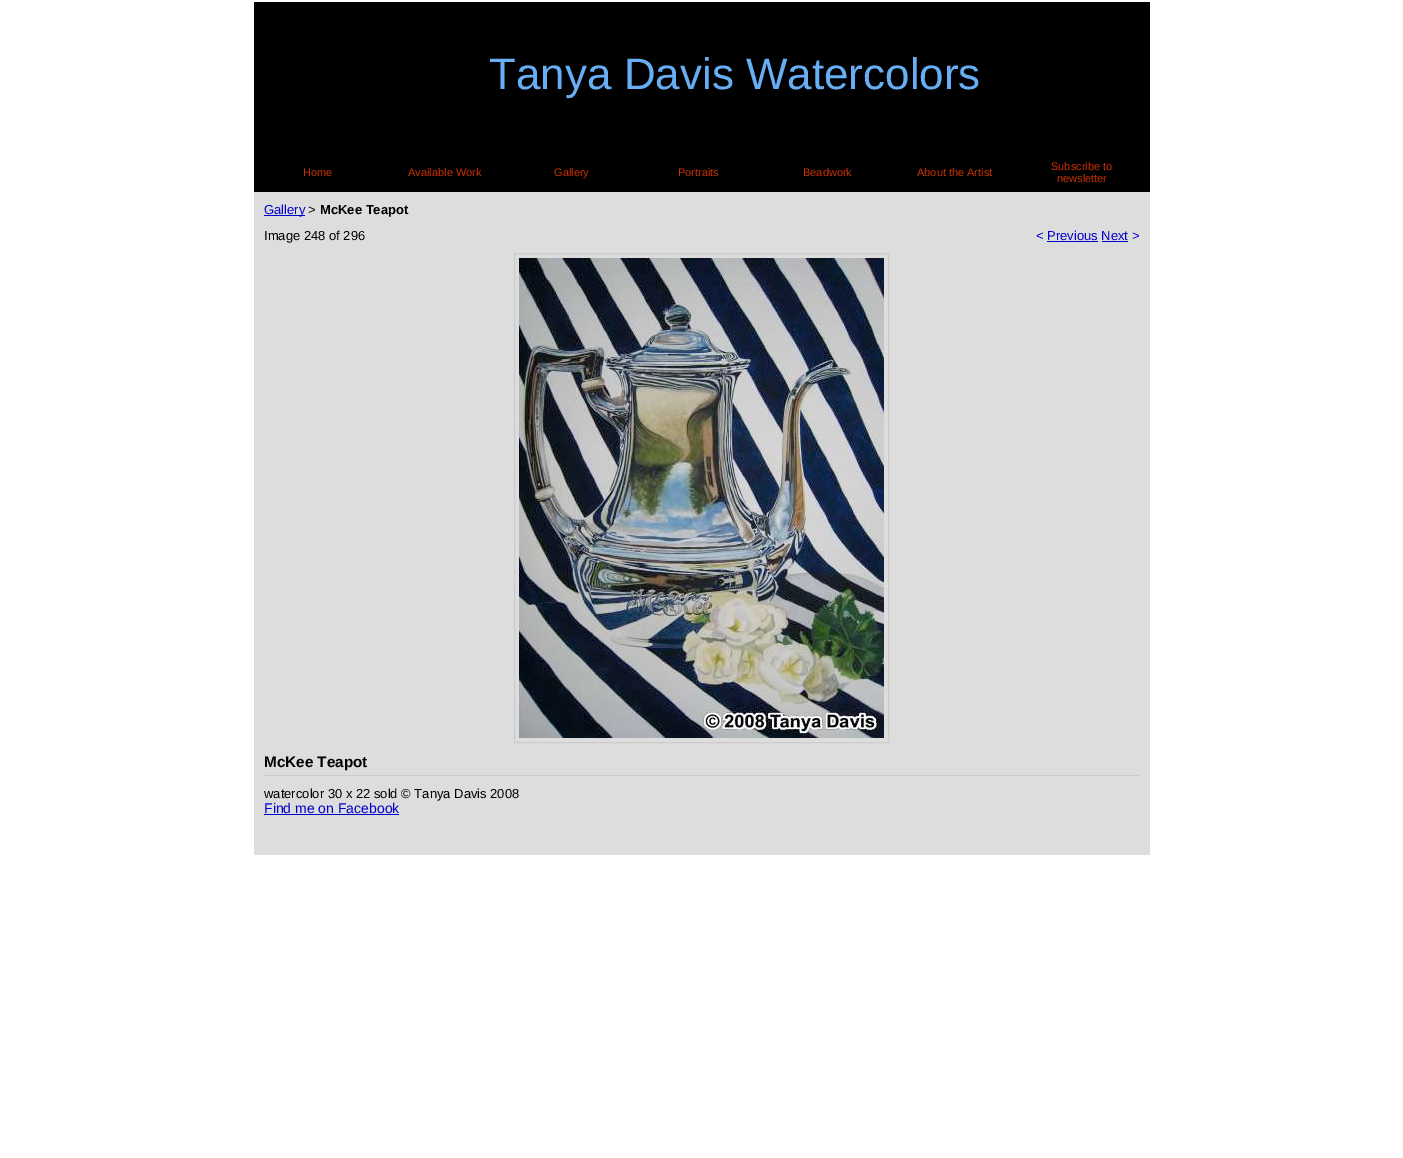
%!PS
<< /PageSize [1403 1158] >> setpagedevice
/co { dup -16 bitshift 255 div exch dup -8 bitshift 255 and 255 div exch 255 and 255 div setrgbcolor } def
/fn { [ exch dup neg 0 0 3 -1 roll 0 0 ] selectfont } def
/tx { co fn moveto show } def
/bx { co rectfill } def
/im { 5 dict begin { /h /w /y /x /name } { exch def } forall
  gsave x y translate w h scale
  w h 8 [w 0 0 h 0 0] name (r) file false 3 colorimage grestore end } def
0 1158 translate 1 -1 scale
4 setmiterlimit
0 0 1403 1158 16#FFFFFF bx
254 2 896 190 16#000000 bx
254 192 896 663 16#DDDDDD bx
264 215 41 1 16#0000CC bx
1047 241 51 1 16#0000CC bx
1102 241 26 1 16#0000CC bx
16#CCCCCC co
514.5 253.5 374 489 rectstroke
(media/1.raw) 519 258 365 480 im
264 775 876 1 16#CCCCCC bx
264 814 135 1 16#0000CC bx
(Tanya Davis Watercolors) 489 89 /LiberationSans-Regular 44 16#67AEF5 tx
(Home) 303 176 /LiberationSans-Regular 11 16#CC3300 tx
(Available Work) 408 176 /LiberationSans-Regular 11 16#CC3300 tx
(Gallery) 554 176 /LiberationSans-Regular 11 16#CC3300 tx
(Portraits) 678 176 /LiberationSans-Regular 11 16#CC3300 tx
(Beadwork) 803 176 /LiberationSans-Regular 11 16#CC3300 tx
(About the Artist) 917 176 /LiberationSans-Regular 11 16#CC3300 tx
(Subscribe to) 1051 170 /LiberationSans-Regular 11 16#CC3300 tx
(newsletter) 1057 182 /LiberationSans-Regular 11 16#CC3300 tx
(Gallery) 264 214 /LiberationSans-Regular 13 16#0000CC tx
(>) 308 214 /LiberationMono-Regular 13 16#000000 tx
(McKee Teapot) 320 214 /LiberationSans-Bold 13 16#000000 tx
(Image 248 of 296) 264 240 /LiberationSans-Regular 13 16#000000 tx
(< Previous Next >) 1036 240 /LiberationSans-Regular 13 16#0000CC tx
(McKee Teapot) 264 767 /LiberationSans-Bold 15.25 16#000000 tx
(watercolor 30 x 22 sold © Tanya Davis 2008) 264 798 /LiberationSans-Regular 13 16#000000 tx
(Find me on Facebook) 264 813 /LiberationSans-Regular 14 16#0000CC tx
showpage
